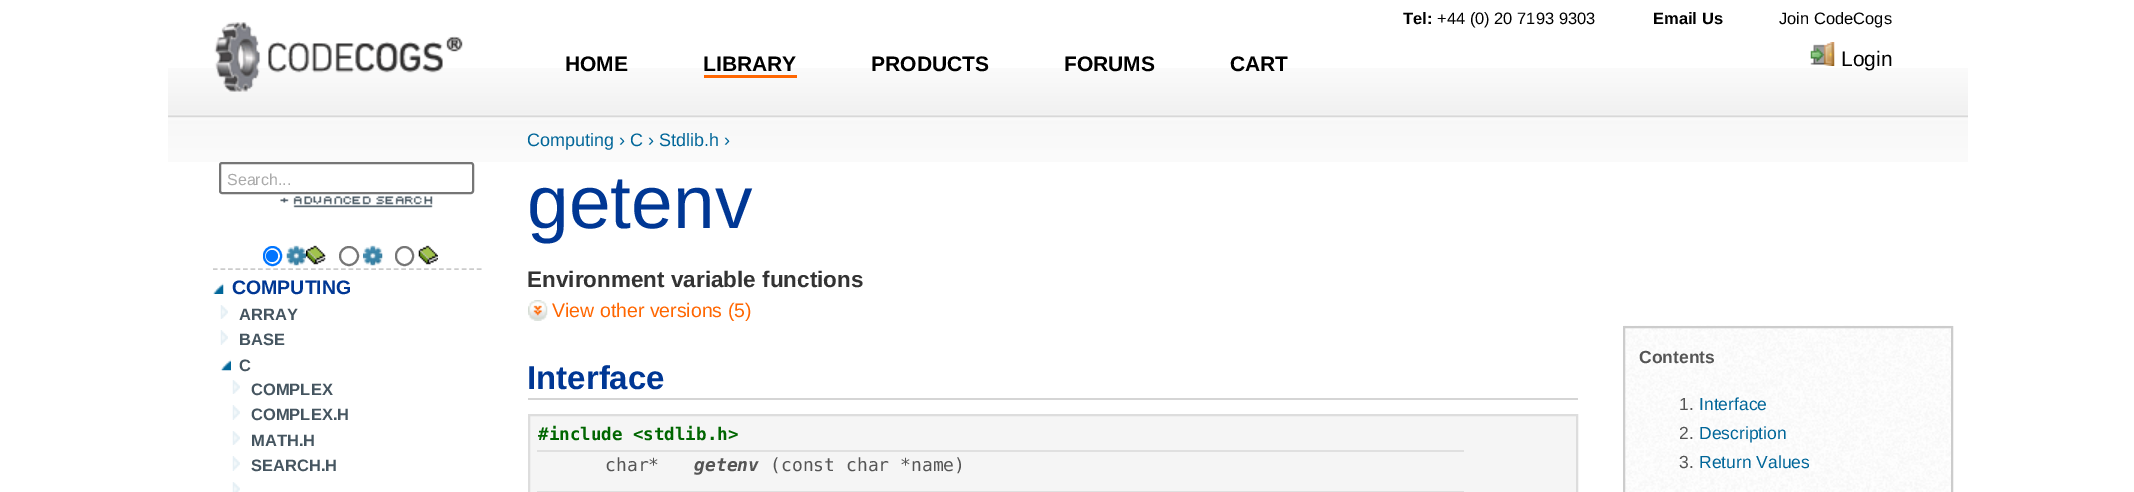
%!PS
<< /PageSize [2134 492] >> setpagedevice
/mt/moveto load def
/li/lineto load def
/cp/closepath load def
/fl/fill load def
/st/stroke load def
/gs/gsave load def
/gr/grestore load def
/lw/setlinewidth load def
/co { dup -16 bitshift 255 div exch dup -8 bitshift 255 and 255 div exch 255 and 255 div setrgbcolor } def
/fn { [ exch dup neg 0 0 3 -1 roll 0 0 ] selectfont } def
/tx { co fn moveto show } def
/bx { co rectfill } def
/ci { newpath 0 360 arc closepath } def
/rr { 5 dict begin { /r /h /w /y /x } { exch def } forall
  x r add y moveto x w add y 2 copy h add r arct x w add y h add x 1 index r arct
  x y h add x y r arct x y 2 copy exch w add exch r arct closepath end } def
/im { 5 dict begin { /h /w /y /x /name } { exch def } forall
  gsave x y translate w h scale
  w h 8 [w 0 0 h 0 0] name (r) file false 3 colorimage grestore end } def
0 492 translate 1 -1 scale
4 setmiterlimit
0 0 2134 492 16#FFFFFF bx
(media/1.raw) 168 68 1800 94 im
(media/2.raw) 214 22 249 70 im
704 75 93 3 16#FF6600 bx
(media/3.raw) 1810 42 25 24 im
16#767676 co
2 lw
220 163 253 30 2 rr st
(media/4.raw) 280 196 153 12 im
16#0075FF co
264 247 17 18 8.5 rr st
272 256 6 ci fl
(media/5.raw) 286 245 20 21 im
(media/6.raw) 306 245 20 20 im
16#767676 co
349 256 9 ci st
(media/7.raw) 363 245 20 21 im
396 247 17 18 8.5 rr st
(media/8.raw) 418 245 20 20 im
16#CCCCCC co
1.5 lw
[4.5 3.04] 0 setdash
213 269 mt 481.5 269 li st
(media/9.raw) 213 283 11 11 im
(media/10.raw) 220 305 8 14 im
(media/11.raw) 220 330 8 15 im
(media/12.raw) 220 359 11 12 im
(media/10.raw) 232 380 8 14 im
(media/11.raw) 232 405 8 15 im
(media/10.raw) 232 431 8 14 im
(media/11.raw) 232 456 8 15 im
(media/13.raw) 232 482 8 10 im
(media/14.raw) 528 300 20 21 im
528 398 1050 2 16#D5D5D5 bx
16#F5F5F5 co
529 415 mt 1577 415 li 1577 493 li 529 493 li cp gs fl gr
16#DDDDDD co
2 lw
[] 0 setdash
st
537 450 927 2 16#E0E0E0 bx
537 491 927 1 16#E0E0E0 bx
(media/15.raw) 1623 325 330 167 im
16#CCCCCC co
1624 327 328 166 rectstroke
(HOME) 565 71 /LiberationSans-Bold 21 16#000000 tx
(LIBRARY) 703 71 /LiberationSans-Bold 21 16#000000 tx
(PRODUCTS) 871 71 /LiberationSans-Bold 21 16#000000 tx
(FORUMS) 1064 71 /LiberationSans-Bold 21 16#000000 tx
(CART) 1230 71 /LiberationSans-Bold 21 16#000000 tx
(Tel:) 1403 24 /LiberationSans-Bold 16.5 16#000000 tx
(+44 \(0\) 20 7193 9303) 1437 24 /LiberationSans-Regular 16.5 16#000000 tx
(Email Us) 1653 24 /LiberationSans-Bold 16.5 16#000000 tx
(Join CodeCogs) 1779 24 /LiberationSans-Regular 16.5 16#000000 tx
(Login) 1841 66 /LiberationSans-Regular 21 16#000000 tx
(Search...) 227 185 /LiberationSans-Regular 16 16#AAAAAA tx
(COMPUTING) 232 294 /LiberationSans-Bold 19.5 16#003794 tx
(ARRAY) 239 320 /LiberationSans-Bold 16.5 16#455560 tx
(BASE) 239 345 /LiberationSans-Bold 16.5 16#455560 tx
(C) 239 371 /LiberationSans-Bold 16.5 16#455560 tx
(COMPLEX) 251 395 /LiberationSans-Bold 16.5 16#455560 tx
(COMPLEX.H) 251 420 /LiberationSans-Bold 16.5 16#455560 tx
(MATH.H) 251 446 /LiberationSans-Bold 16.5 16#455560 tx
(SEARCH.H) 251 471 /LiberationSans-Bold 16.5 16#455560 tx
(Computing › C › Stdlib.h ›) 527 146 /LiberationSans-Regular 18 16#006699 tx
(getenv) 527 228 /LiberationSans-Regular 75 16#003794 tx
(Environment variable functions) 527 287 /LiberationSans-Bold 22.5 16#333333 tx
(View other versions \(5\)) 552 317 /LiberationSans-Regular 19.5 16#FF6600 tx
(Interface) 527 389 /LiberationSans-Bold 33 16#003794 tx
(#include <stdlib.h>) 538 440 /DejaVuSansMono-Bold 17.5 16#006600 tx
(char*) 605 471 /DejaVuSansMono-Regular 18 16#555555 tx
(getenv) 694 471 /DejaVuSansMono-BoldItalic 18 16#555555 tx
(\(const char *name\)) 770 471 /DejaVuSansMono-Regular 18 16#555555 tx
(Contents) 1639 363 /LiberationSans-Bold 17.5 16#555555 tx
(1.) 1679 410 /LiberationSans-Regular 17.5 16#555555 tx
(Interface) 1699 410 /LiberationSans-Regular 17.5 16#006699 tx
(2.) 1679 439 /LiberationSans-Regular 17.5 16#555555 tx
(Description) 1699 439 /LiberationSans-Regular 17.5 16#006699 tx
(3.) 1679 468 /LiberationSans-Regular 17.5 16#555555 tx
(Return Values) 1699 468 /LiberationSans-Regular 17.5 16#006699 tx
showpage
